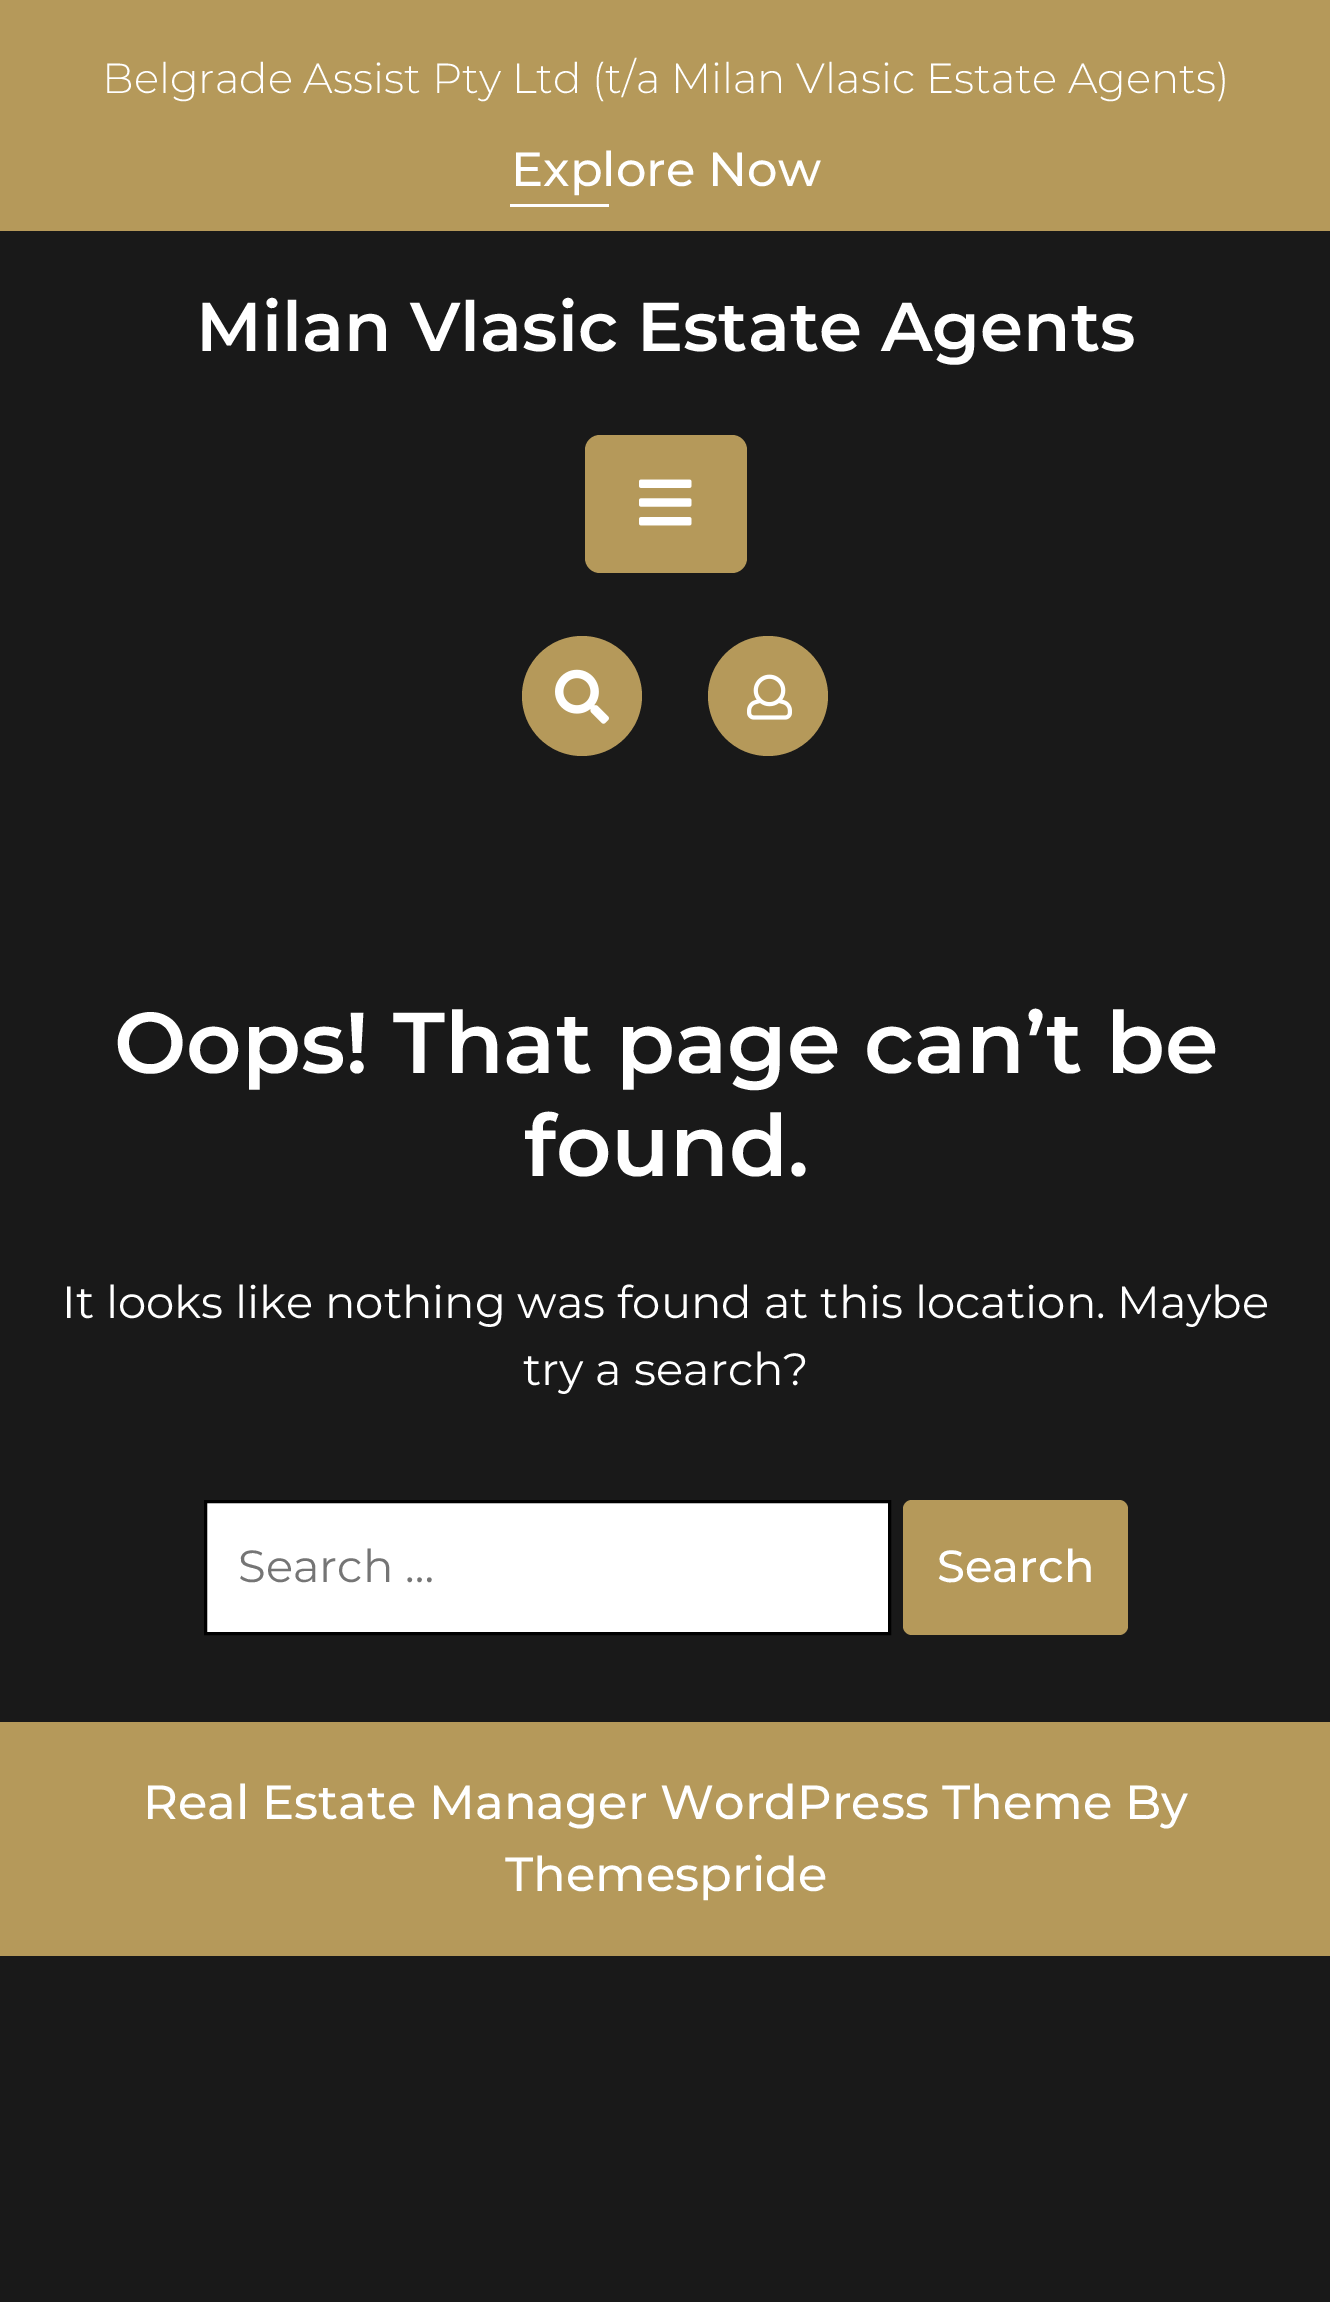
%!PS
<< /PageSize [1330 2302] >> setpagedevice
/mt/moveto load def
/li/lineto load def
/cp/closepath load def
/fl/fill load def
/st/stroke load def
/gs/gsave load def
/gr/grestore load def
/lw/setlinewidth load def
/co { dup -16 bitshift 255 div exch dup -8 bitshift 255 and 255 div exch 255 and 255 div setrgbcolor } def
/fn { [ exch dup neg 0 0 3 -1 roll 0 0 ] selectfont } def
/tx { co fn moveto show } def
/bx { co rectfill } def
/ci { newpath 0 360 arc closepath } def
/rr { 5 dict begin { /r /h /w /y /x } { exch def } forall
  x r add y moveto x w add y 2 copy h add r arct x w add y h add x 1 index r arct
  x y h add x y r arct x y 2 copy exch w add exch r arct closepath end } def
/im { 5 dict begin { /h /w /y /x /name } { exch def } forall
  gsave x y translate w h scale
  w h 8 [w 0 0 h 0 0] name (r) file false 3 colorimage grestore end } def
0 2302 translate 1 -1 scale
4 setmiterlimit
0 0 1330 2302 16#191919 bx
0 0 1330 231 16#B5995A bx
510 204 99 3 16#FFFFFF bx
16#B5995A co
585 435 162 138 15 rr fl
(media/1.raw) 639 479 53 47 im
582 696 60 ci fl
(media/2.raw) 555 669 54 55 im
768 696 60 ci fl
(media/3.raw) 747 674 45 46 im
16#FFFFFF co
205.5 1501.5 mt 889.5 1501.5 li 889.5 1633.5 li 205.5 1633.5 li cp gs fl gr
16#000000 co
3 lw
st
16#B5995A co
903 1500 225 135 9 rr fl
0 1722 1330 234 16#B5995A bx
(Belgrade Assist Pty Ltd \(t/a Milan Vlasic Estate Agents\)) 102 93 /Montserrat-Light 42 16#FFFFFF tx
(Explore Now) 511 186 /Montserrat-Medium 48 16#FFFFFF tx
(Milan Vlasic Estate Agents) 196 351 /Montserrat-SemiBold 69 16#FFFFFF tx
(Oops! That page can’t be) 114 1073 /Montserrat-SemiBold 86 16#FFFFFF tx
(found.) 524 1176 /Montserrat-SemiBold 86 16#FFFFFF tx
(It looks like nothing was found at this location. Maybe) 62 1318 /Montserrat-Regular 45 16#FFFFFF tx
(try a search?) 523 1385 /Montserrat-Regular 45 16#FFFFFF tx
(Search …) 238 1582 /Montserrat-Regular 45 16#757575 tx
(Search) 937 1582 /Montserrat-Medium 45 16#FFFFFF tx
(Real Estate Manager WordPress Theme By) 143 1819 /Montserrat-Medium 48 16#FFFFFF tx
(Themespride) 505 1891 /Montserrat-Medium 48 16#FFFFFF tx
showpage
